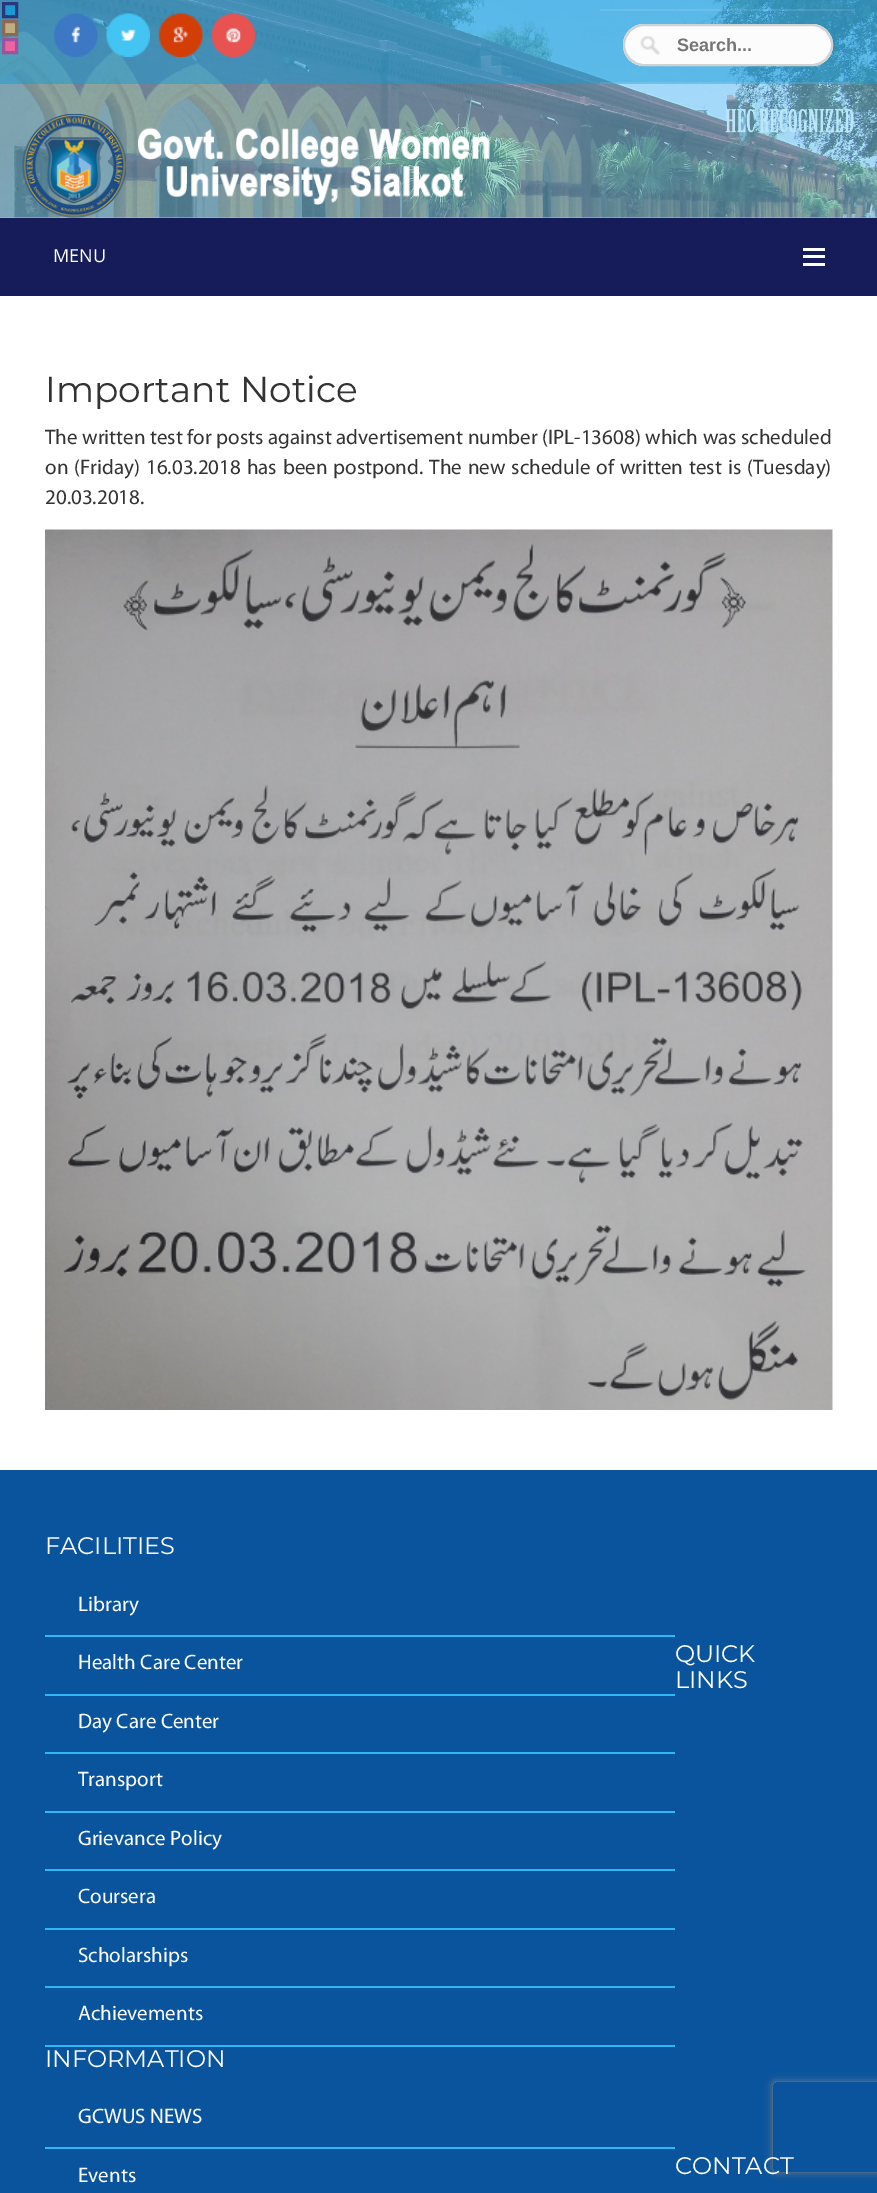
%!PS
<< /PageSize [877 2193] /PageUsesTransparency true >> setpagedevice
/mt/moveto load def
/li/lineto load def
/ct/curveto load def
/cp/closepath load def
/fl/fill load def
/st/stroke load def
/gs/gsave load def
/gr/grestore load def
/lw/setlinewidth load def
/co { dup -16 bitshift 255 div exch dup -8 bitshift 255 and 255 div exch 255 and 255 div setrgbcolor } def
/fn { [ exch dup neg 0 0 3 -1 roll 0 0 ] selectfont } def
/tx { co fn moveto show } def
/bx { co rectfill } def
/al { dup .setfillconstantalpha .setstrokeconstantalpha } def
/rr { 5 dict begin { /r /h /w /y /x } { exch def } forall
  x r add y moveto x w add y 2 copy h add r arct x w add y h add x 1 index r arct
  x y h add x y r arct x y 2 copy exch w add exch r arct closepath end } def
/sh { 12 dict begin { /a /b /q /h /w /y /x } { exch def } forall gsave /was 0 def
  9 -2 -9 { dup b mul 4 div /e exch def 1 sub .425 mul 2.718 exch exp 1 add a .99 .min exch div /now exch def
    1 1 now sub 1 was sub div sub al /was now def
    w h .min e 2 mul add 0 gt { x e sub y e sub w e 2 mul add h e 2 mul add
      q e add b .6 mul add w h .min 2 div e add .min 0 .max rr fill } if } for grestore end } def
/im { 5 dict begin { /h /w /y /x /name } { exch def } forall
  gsave x y translate w h scale
  w h 8 [w 0 0 h 0 0] name (r) file false 3 colorimage grestore end } def
0 .pushpdf14devicefilter
0 2193 translate 1 -1 scale
4 setmiterlimit
0 0 877 2193 16#FFFFFF bx
0 0 877 218 16#79D1F9 bx
(media/1.raw) 0 0 877 218 im
(media/2.raw) 22 114 468 104 im
0.5 al
0 0 877 84 16#179BD7 bx
1 al
3.5 3.5 mt 16.5 3.5 li 16.5 16.5 li 3.5 16.5 li cp gs fl gr
16#2D367B co
3 lw
st
16#BFAF80 co
3.5 21.5 mt 16.5 21.5 li 16.5 34.5 li 3.5 34.5 li cp gs fl gr
16#8C6954 co
st
16#EB65A0 co
3.5 39.5 mt 16.5 39.5 li 16.5 52.5 li 3.5 52.5 li cp gs fl gr
16#9B539C co
st
(media/3.raw) 54 13 44 44 im
(media/4.raw) 106 13 44 44 im
(media/5.raw) 158 13 45 44 im
(media/6.raw) 211 13 44 44 im
0.1 al
600 82 255 2 16#FFFFFF bx
600 9 255 2 16#FFFFFF bx
1 al
16#FCFCFC co
623 24 210 42 21 rr fl
(media/7.raw) 640 36 20 19 im
16#D1D1D1 co
2 lw
624 25 208 40 20 rr st
0 218 877 78 16#161C5A bx
803 248 22 3 16#FFFFFF bx
803 255 22 3 16#FFFFFF bx
803 263 22 3 16#FFFFFF bx
(media/8.raw) 45 529 788 881 im
0 1470 877 723 16#0A549E bx
45 1635 630 2 16#30B8F5 bx
45 1694 630 2 16#30B8F5 bx
45 1752 630 2 16#30B8F5 bx
45 1811 630 2 16#30B8F5 bx
45 1869 630 2 16#30B8F5 bx
45 1928 630 2 16#30B8F5 bx
45 1986 630 2 16#30B8F5 bx
45 2045 630 2 16#30B8F5 bx
45 2147 630 2 16#30B8F5 bx
gs
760 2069 mt 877 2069 li 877 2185 li 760 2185 li cp 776 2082 mt 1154 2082 li 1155.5 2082 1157 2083.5 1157 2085 ct 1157 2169 li 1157 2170.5 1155.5 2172 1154 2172 ct 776 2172 li 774.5 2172 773 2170.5 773 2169 ct 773 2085 li 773 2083.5 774.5 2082 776 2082 ct cp eoclip newpath
16#808080 co
773 2082 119 90 3 4 1 sh
gr
(Search...) 677 51 /LiberationSans-Bold 18 16#757575 tx
(MENU) 53 262 /OpenSans-Regular 18 16#FFFFFF tx
(Important Notice) 45 402 /Montserrat-Regular 36 16#333333 tx
/Myriad-Regular 21 fn
45 444 mt .1 0 32 (The written test for posts against advertisement number \(IPL-13608\) which was scheduled) widthshow
45 474 mt 1.5 0 32 (on \(Friday\) 16.03.2018 has been postpond. The new schedule of written test is \(Tuesday\)) widthshow
(20.03.2018.) 45 504 /Myriad-Regular 21 16#333333 tx
(FACILITIES) 45 1554 /Montserrat-Regular 24 16#FFFFFF tx
(Library) 78 1611 /Myriad-Regular 21 16#FFFFFF tx
(Health Care Center) 78 1669 /Myriad-Regular 21 16#FFFFFF tx
(Day Care Center) 78 1728 /Myriad-Regular 21 16#FFFFFF tx
(Transport) 78 1786 /Myriad-Regular 21 16#FFFFFF tx
(QUICK) 675 1662 /Montserrat-Regular 24 16#FFFFFF tx
(LINKS) 675 1688 /Montserrat-Regular 24 16#FFFFFF tx
(Grievance Policy) 78 1845 /Myriad-Regular 21 16#FFFFFF tx
(Coursera) 78 1903 /Myriad-Regular 21 16#FFFFFF tx
(Scholarships) 78 1962 /Myriad-Regular 21 16#FFFFFF tx
(Achievements) 78 2020 /Myriad-Regular 21 16#FFFFFF tx
(INFORMATION) 45 2067 /Montserrat-Regular 24 16#FFFFFF tx
(GCWUS NEWS) 78 2123 /Myriad-Regular 21 16#FFFFFF tx
(Events) 78 2182 /Myriad-Regular 21 16#FFFFFF tx
(CONTACT) 675 2174 /Montserrat-Regular 24 16#FFFFFF tx
.poppdf14devicefilter showpage
